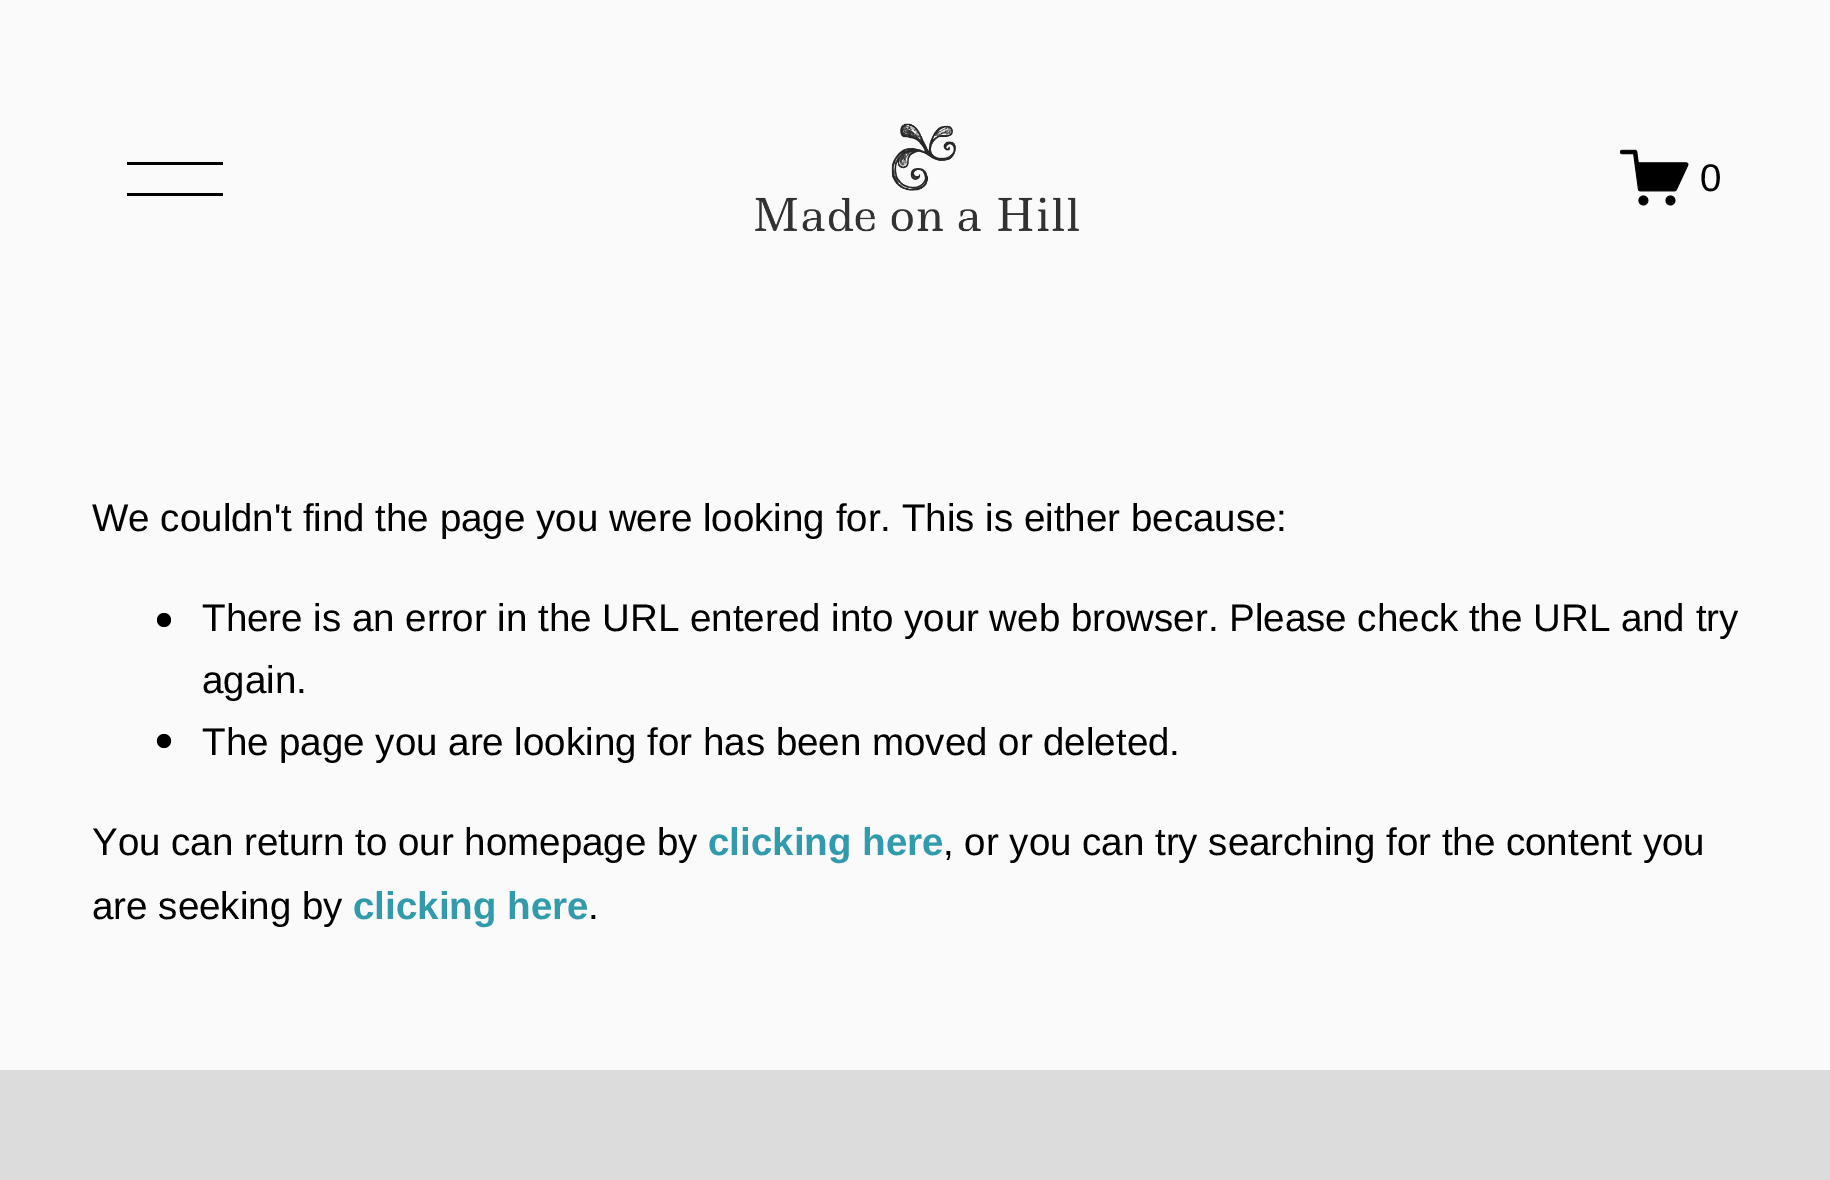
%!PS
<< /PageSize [1830 1180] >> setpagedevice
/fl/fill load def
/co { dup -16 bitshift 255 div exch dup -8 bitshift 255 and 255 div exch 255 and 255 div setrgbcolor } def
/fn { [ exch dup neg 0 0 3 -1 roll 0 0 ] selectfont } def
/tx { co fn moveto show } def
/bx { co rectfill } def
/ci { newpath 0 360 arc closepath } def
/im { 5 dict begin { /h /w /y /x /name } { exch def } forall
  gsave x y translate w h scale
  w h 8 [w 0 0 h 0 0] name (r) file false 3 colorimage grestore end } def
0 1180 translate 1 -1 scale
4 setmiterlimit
0 0 1830 1180 16#FAFAFA bx
127 162 96 3 16#000000 bx
127 193 96 3 16#000000 bx
(media/1.raw) 755 123 324 109 im
(media/2.raw) 1620 149 69 57 im
164 620 7 ci fl
164 741 7 ci fl
0 1070 1830 110 16#DCDCDC bx
(0) 1700 191 /LiberationSans-Regular 38.5 16#000000 tx
(We couldn't find the page you were looking for. This is either because:) 92 531 /LiberationSans-Regular 38.5 16#000000 tx
(There is an error in the URL entered into your web browser. Please check the URL and try) 202 631 /LiberationSans-Regular 38.5 16#000000 tx
(again.) 202 693 /LiberationSans-Regular 38.5 16#000000 tx
(The page you are looking for has been moved or deleted.) 202 755 /LiberationSans-Regular 38.5 16#000000 tx
(You can return to our homepage by) 92 855 /LiberationSans-Regular 38.5 16#000000 tx
(clicking here) 708 855 /LiberationSans-Bold 38.5 16#319AAB tx
(, or you can try searching for the content you) 943 855 /LiberationSans-Regular 38.5 16#000000 tx
(are seeking by) 92 919 /LiberationSans-Regular 38.5 16#000000 tx
(clicking here) 353 919 /LiberationSans-Bold 38.5 16#319AAB tx
(.) 588 919 /LiberationSans-Regular 38.5 16#000000 tx
showpage
